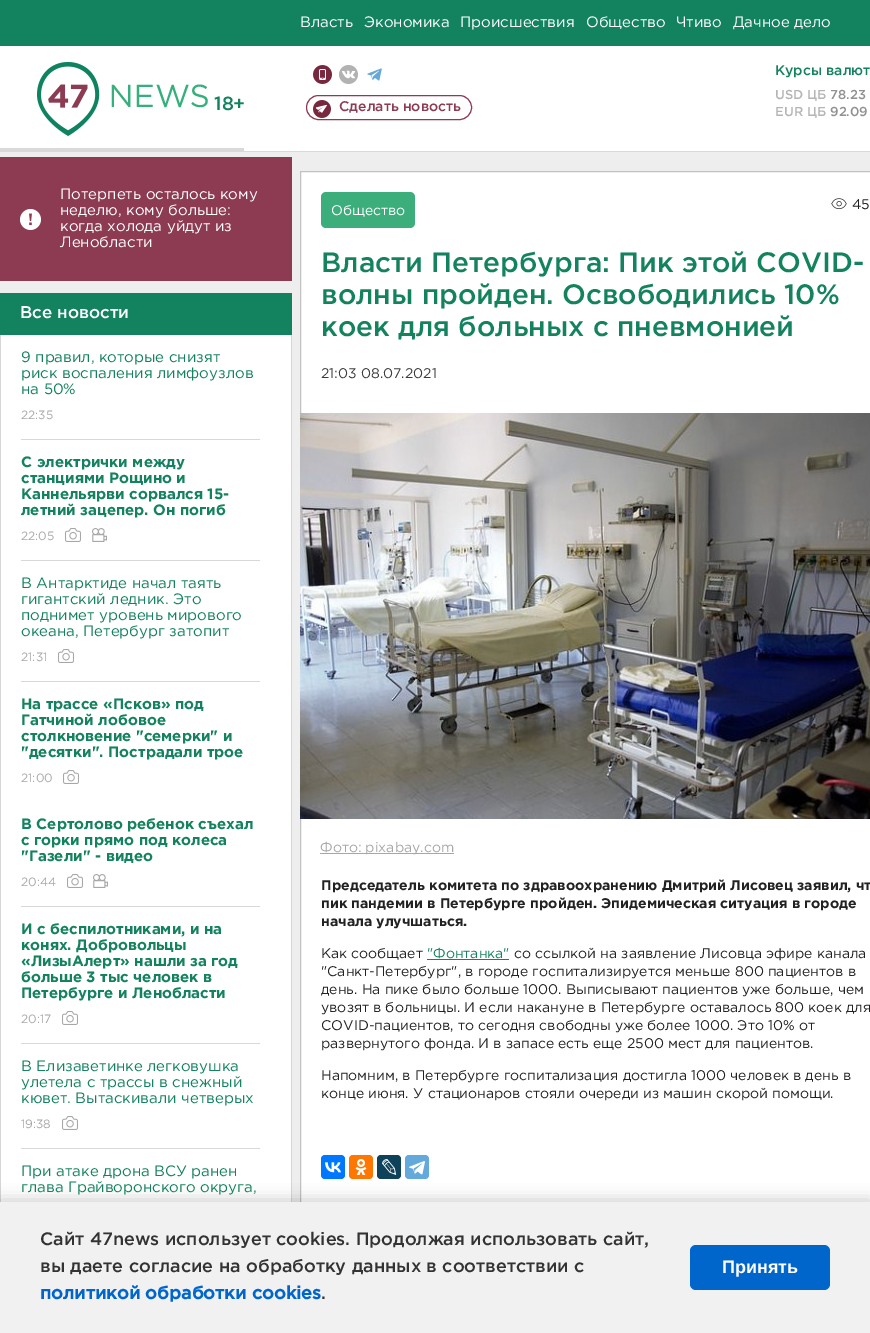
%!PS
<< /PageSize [870 1333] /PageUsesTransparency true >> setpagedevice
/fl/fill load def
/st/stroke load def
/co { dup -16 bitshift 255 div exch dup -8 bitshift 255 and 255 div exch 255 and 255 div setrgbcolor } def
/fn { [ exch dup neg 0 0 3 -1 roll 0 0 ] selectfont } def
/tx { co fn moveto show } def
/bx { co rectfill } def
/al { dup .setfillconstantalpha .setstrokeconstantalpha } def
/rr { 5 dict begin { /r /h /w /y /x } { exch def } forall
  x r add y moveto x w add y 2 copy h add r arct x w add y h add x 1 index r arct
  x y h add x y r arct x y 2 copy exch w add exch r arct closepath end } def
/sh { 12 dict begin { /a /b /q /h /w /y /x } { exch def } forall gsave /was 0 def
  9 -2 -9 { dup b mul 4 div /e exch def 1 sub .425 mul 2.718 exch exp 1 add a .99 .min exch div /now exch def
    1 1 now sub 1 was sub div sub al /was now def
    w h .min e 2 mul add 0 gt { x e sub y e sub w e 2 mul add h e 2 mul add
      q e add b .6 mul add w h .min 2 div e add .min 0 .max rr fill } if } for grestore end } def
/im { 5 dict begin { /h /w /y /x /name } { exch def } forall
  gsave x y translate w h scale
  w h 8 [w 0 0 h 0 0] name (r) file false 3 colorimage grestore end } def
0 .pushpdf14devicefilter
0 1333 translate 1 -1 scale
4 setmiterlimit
0 0 870 1333 16#EEEEEE bx
0 0 870 46 16#13825F bx
0 46 870 105 16#FFFFFF bx
0 151 870 1 16#DAD9D9 bx
0 148 244 3 16#DAD9D9 bx
(media/1.raw) 37 62 171 74 im
(media/2.raw) 313 65 19 19 im
(media/3.raw) 339 65 19 19 im
(media/4.raw) 367 68 15 13 im
(media/5.raw) 313 100 18 18 im
16#8C3B52 co
306.5 95.5 165 24 12 rr st
0 157 292 124 16#8C3B52 bx
(media/6.raw) 20 209 21 21 im
0 293 292 42 16#13825F bx
1 335 290 867 16#FFFFFF bx
291 335 1 867 16#D6D6D6 bx
0 335 1 867 16#D6D6D6 bx
21 439 239 1 16#D8D8D8 bx
21 560 239 1 16#D8D8D8 bx
(media/7.raw) 65 528 16 14 im
(media/8.raw) 92 528 15 14 im
21 681 239 1 16#D8D8D8 bx
(media/7.raw) 58 649 16 14 im
(media/7.raw) 63 770 16 14 im
21 906 239 1 16#D8D8D8 bx
(media/7.raw) 67 874 16 14 im
(media/8.raw) 93 874 15 14 im
21 1043 239 1 16#D8D8D8 bx
(media/7.raw) 62 1011 16 14 im
21 1148 239 1 16#D8D8D8 bx
(media/7.raw) 62 1116 16 14 im
301 172 569 1030 16#FFFFFF bx
16#C2C2C2 co
300.5 171.5 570 1128 rectstroke
16#3BAE7C co
321 192 94 36 5 rr fl
(media/9.raw) 831 198 16 11 im
(media/10.raw) 300 413 570 406 im
320 853 134 1 16#A7A7A7 bx
427 959 82 1 16#13825F bx
16#0077FF co
321 1155 24 24 4 rr fl
(media/11.raw) 325 1162 16 11 im
16#FF7700 co
349 1155 24 24 4 rr fl
(media/12.raw) 355 1159 12 16 im
16#0D425A co
377 1155 24 24 4 rr fl
(media/13.raw) 382 1159 15 16 im
16#64A9DC co
405 1155 24 24 4 rr fl
(media/14.raw) 409 1161 16 14 im
16#000000 co
0 1200 870 131 0 7.5 .2 sh
0 1202 870 131 16#F1F1F1 bx
16#0066CC co
690 1245 140 45 6 rr fl
(Власть) 300 27 /Gotham-Regular 15 16#FFFFFF tx
(Экономика) 364 27 /Gotham-Regular 15 16#FFFFFF tx
(Происшествия) 460 27 /Gotham-Regular 15 16#FFFFFF tx
(Общество) 586 27 /Gotham-Regular 15 16#FFFFFF tx
(Чтиво) 676 27 /Gotham-Regular 15 16#FFFFFF tx
(Дачное дело) 733 27 /Gotham-Regular 15 16#FFFFFF tx
(Курсы валют) 775 75 /Gotham-Medium 14 16#13825F tx
(USD ЦБ) 775 99 /Gotham-Medium 13 16#B5B5B5 tx
(78.23) 830 99 /Gotham-Medium 13 16#919191 tx
(EUR ЦБ) 775 116 /Gotham-Medium 13 16#B5B5B5 tx
(92.09) 830 116 /Gotham-Medium 13 16#919191 tx
(18+) 214 110 /Gotham-Medium 19 16#13825F tx
(Сделать новость) 339 111 /Gotham-Medium 14 16#8C3B52 tx
(Потерпеть осталось кому) 60 199 /Gotham-Regular 15 16#FFFFFF tx
(неделю, кому больше:) 60 215 /Gotham-Regular 15 16#FFFFFF tx
(когда холода уйдут из) 60 231 /Gotham-Regular 15 16#FFFFFF tx
(Ленобласти) 60 247 /Gotham-Regular 15 16#FFFFFF tx
(Все новости) 20 318 /Gotham-Medium 17 16#FFFFFF tx
(9 правил, которые снизят) 21 362 /Gotham-Regular 15 16#13825F tx
(риск воспаления лимфоузлов) 21 378 /Gotham-Regular 15 16#13825F tx
(на 50%) 21 394 /Gotham-Regular 15 16#13825F tx
(22:35) 21 419 /Gotham-Regular 12 16#A7A7A7 tx
(С электрички между) 21 467 /Gotham-Bold 15 16#13825F tx
(станциями Рощино и) 21 483 /Gotham-Bold 15 16#13825F tx
(Каннельярви сорвался 15-) 21 499 /Gotham-Bold 15 16#13825F tx
(летний зацепер. Он погиб) 21 515 /Gotham-Bold 15 16#13825F tx
(22:05) 21 540 /Gotham-Regular 12 16#A7A7A7 tx
(В Антарктиде начал таять) 21 588 /Gotham-Regular 15 16#13825F tx
(гигантский ледник. Это) 21 604 /Gotham-Regular 15 16#13825F tx
(поднимет уровень мирового) 21 620 /Gotham-Regular 15 16#13825F tx
(океана, Петербург затопит) 21 636 /Gotham-Regular 15 16#13825F tx
(21:31) 21 661 /Gotham-Regular 12 16#A7A7A7 tx
(На трассе «Псков» под) 21 709 /Gotham-Bold 15 16#13825F tx
(Гатчиной лобовое) 21 725 /Gotham-Bold 15 16#13825F tx
(столкновение "семерки" и) 21 741 /Gotham-Bold 15 16#13825F tx
("десятки". Пострадали трое) 21 757 /Gotham-Bold 15 16#13825F tx
(21:00) 21 782 /Gotham-Regular 12 16#A7A7A7 tx
(В Сертолово ребенок съехал) 21 829 /Gotham-Bold 15 16#13825F tx
(с горки прямо под колеса) 21 845 /Gotham-Bold 15 16#13825F tx
("Газели" - видео) 21 861 /Gotham-Bold 15 16#13825F tx
(20:44) 21 886 /Gotham-Regular 12 16#A7A7A7 tx
(И с беспилотниками, и на) 21 934 /Gotham-Bold 15 16#13825F tx
(конях. Добровольцы) 21 950 /Gotham-Bold 15 16#13825F tx
(«ЛизыАлерт» нашли за год) 21 966 /Gotham-Bold 15 16#13825F tx
(больше 3 тыс человек в) 21 982 /Gotham-Bold 15 16#13825F tx
(Петербурге и Ленобласти) 21 998 /Gotham-Bold 15 16#13825F tx
(20:17) 21 1023 /Gotham-Regular 12 16#A7A7A7 tx
(В Елизаветинке легковушка) 21 1071 /Gotham-Regular 15 16#13825F tx
(улетела с трассы в снежный) 21 1087 /Gotham-Regular 15 16#13825F tx
(кювет. Вытаскивали четверых) 21 1103 /Gotham-Regular 15 16#13825F tx
(19:38) 21 1128 /Gotham-Regular 12 16#A7A7A7 tx
(При атаке дрона ВСУ ранен) 21 1176 /Gotham-Regular 15 16#13825F tx
(глава Грайворонского округа,) 21 1192 /Gotham-Regular 15 16#13825F tx
(Общество) 331 215 /Gotham-Regular 14 16#FFFFFF tx
(45) 852 209 /Gotham-Regular 14 16#222222 tx
(Власти Петербурга: Пик этой COVID-) 321 272 /Gotham-Medium 28 16#13825F tx
(волны пройден. Освободились 10%) 321 304 /Gotham-Medium 28 16#13825F tx
(коек для больных с пневмонией) 321 336 /Gotham-Medium 28 16#13825F tx
(21:03 08.07.2021) 321 378 /Gotham-Regular 14 16#3C3C3C tx
(Фото: pixabay.com) 320 852 /Gotham-Regular 14 16#A7A7A7 tx
(Председатель комитета по здравоохранению Дмитрий Лисовец заявил, чт) 321 890 /Gotham-Bold 14 16#222222 tx
(пик пандемии в Петербурге пройден. Эпидемическая ситуация в городе) 321 908 /Gotham-Bold 14 16#222222 tx
(начала улучшаться.) 321 926 /Gotham-Bold 14 16#222222 tx
(Как сообщает) 321 958 /Gotham-Regular 14 16#222222 tx
("Фонтанка") 427 958 /Gotham-Regular 14 16#13825F tx
(со ссылкой на заявление Лисовца эфире канала) 514 958 /Gotham-Regular 14 16#222222 tx
("Санкт-Петербург", в городе госпитализируется меньше 800 пациентов в) 321 976 /Gotham-Regular 14 16#222222 tx
(день. На пике было больше 1000. Выписывают пациентов уже больше, чем) 321 994 /Gotham-Regular 14 16#222222 tx
(увозят в больницы. И если накануне в Петербурге оставалось 800 коек для) 321 1012 /Gotham-Regular 14 16#222222 tx
(COVID-пациентов, то сегодня свободны уже более 1000. Это 10% от) 321 1030 /Gotham-Regular 14 16#222222 tx
(развернутого фонда. И в запасе есть еще 2500 мест для пациентов.) 321 1048 /Gotham-Regular 14 16#222222 tx
(Напомним, в Петербурге госпитализация достигла 1000 человек в день в) 321 1080 /Gotham-Regular 14 16#222222 tx
(конце июня. У стационаров стояли очереди из машин скорой помощи.) 321 1098 /Gotham-Regular 14 16#222222 tx
(Сайт 47news использует cookies. Продолжая использовать сайт,) 40 1245 /Gotham-Medium 18 16#333333 tx
(вы даете согласие на обработку данных в соответствии с) 40 1272 /Gotham-Medium 18 16#333333 tx
(политикой обработки cookies) 40 1299 /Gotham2-Bold 18 16#0066CC tx
(.) 321 1299 /Gotham-Medium 18 16#333333 tx
(Принять) 722 1273 /LiberationSans-Bold 18 16#FFFFFF tx
.poppdf14devicefilter showpage
